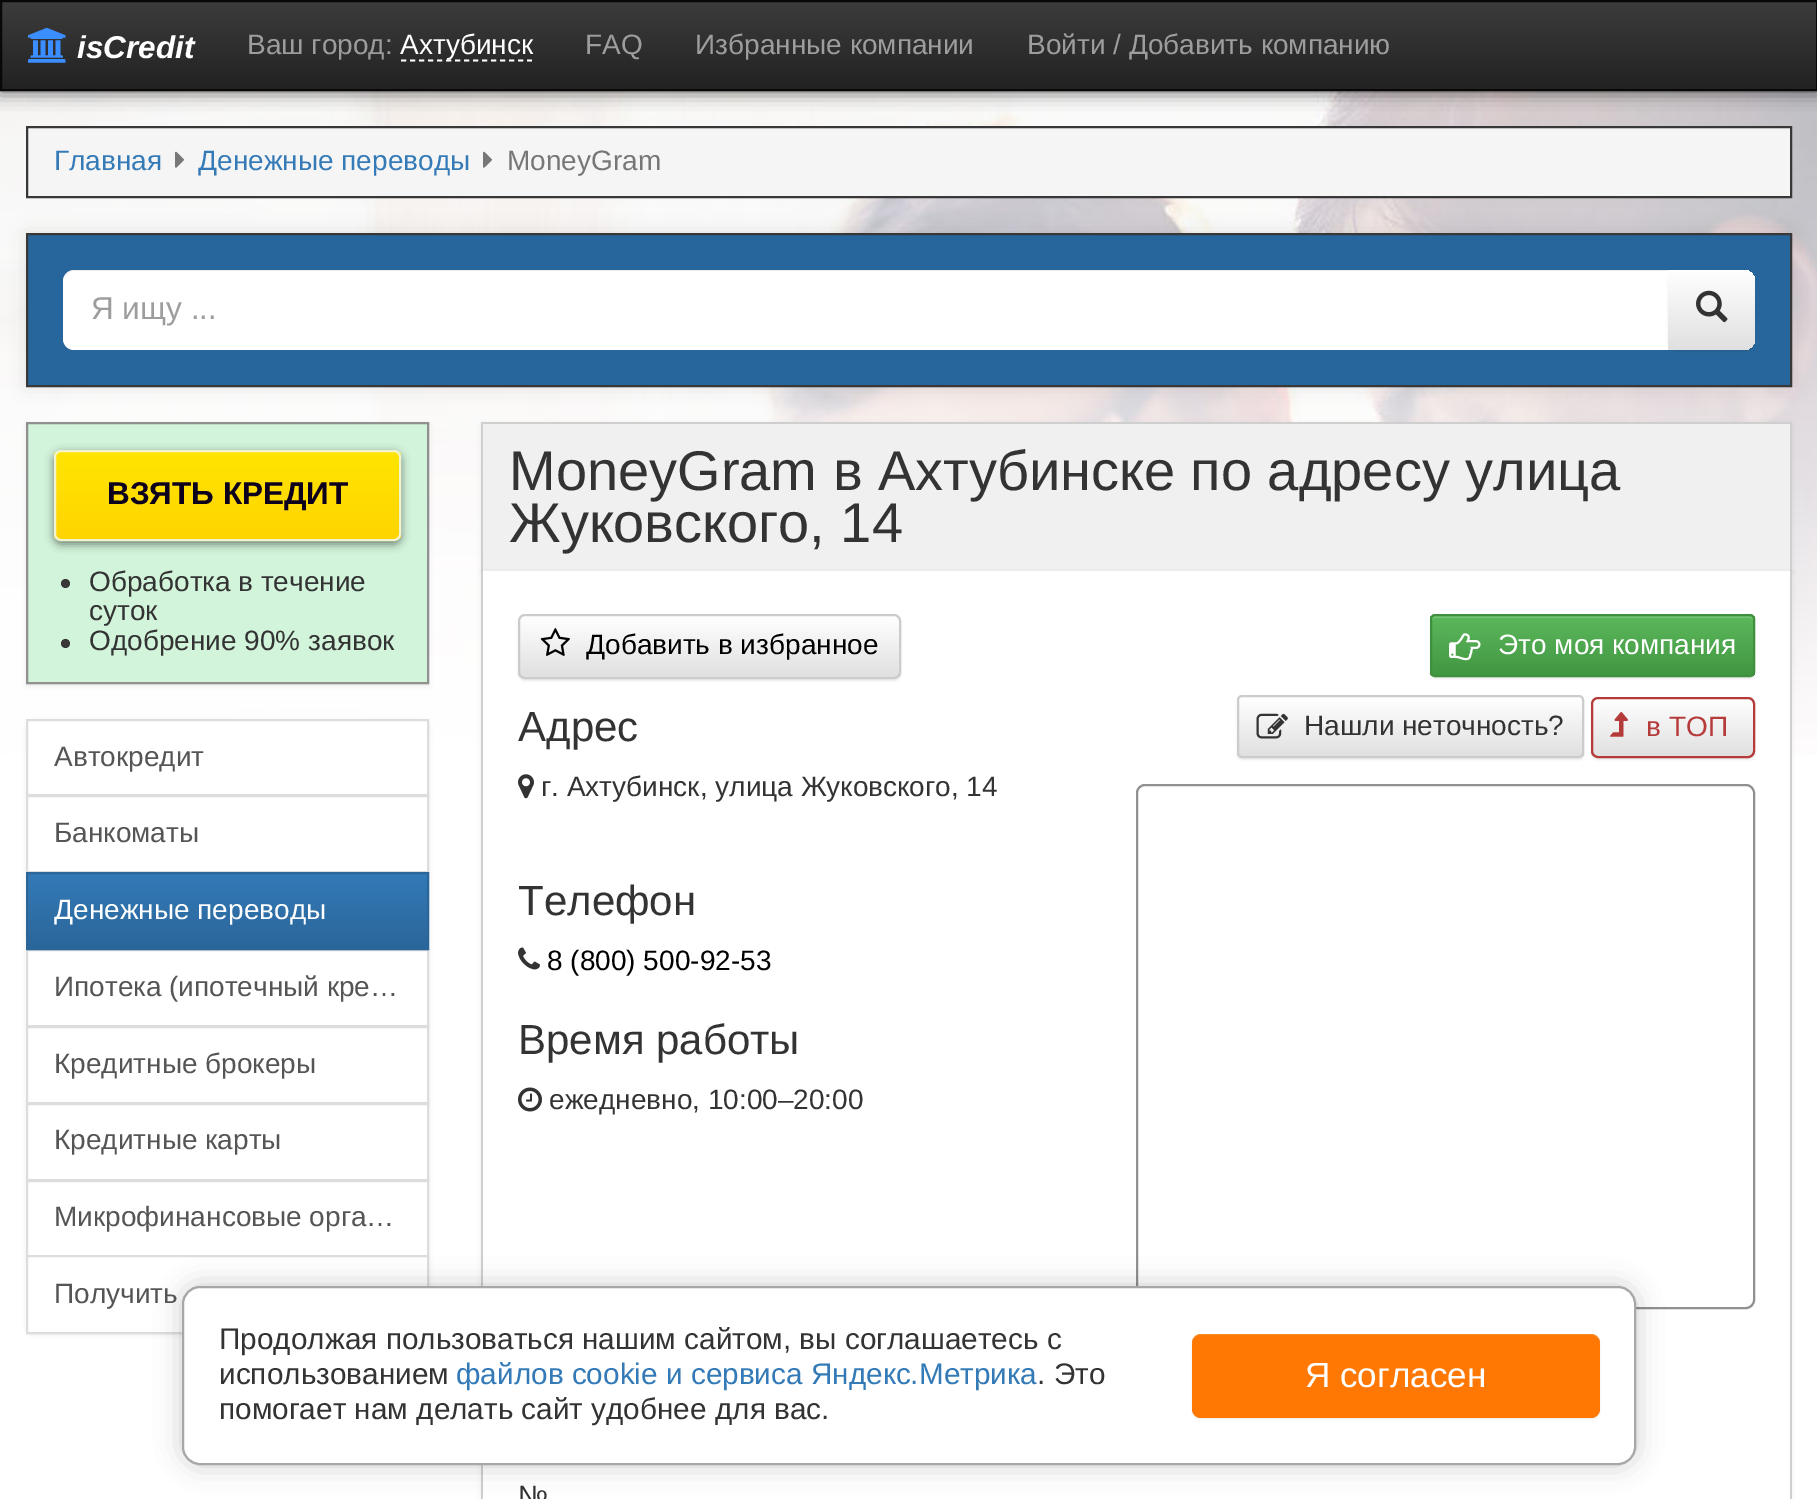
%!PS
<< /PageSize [1817 1499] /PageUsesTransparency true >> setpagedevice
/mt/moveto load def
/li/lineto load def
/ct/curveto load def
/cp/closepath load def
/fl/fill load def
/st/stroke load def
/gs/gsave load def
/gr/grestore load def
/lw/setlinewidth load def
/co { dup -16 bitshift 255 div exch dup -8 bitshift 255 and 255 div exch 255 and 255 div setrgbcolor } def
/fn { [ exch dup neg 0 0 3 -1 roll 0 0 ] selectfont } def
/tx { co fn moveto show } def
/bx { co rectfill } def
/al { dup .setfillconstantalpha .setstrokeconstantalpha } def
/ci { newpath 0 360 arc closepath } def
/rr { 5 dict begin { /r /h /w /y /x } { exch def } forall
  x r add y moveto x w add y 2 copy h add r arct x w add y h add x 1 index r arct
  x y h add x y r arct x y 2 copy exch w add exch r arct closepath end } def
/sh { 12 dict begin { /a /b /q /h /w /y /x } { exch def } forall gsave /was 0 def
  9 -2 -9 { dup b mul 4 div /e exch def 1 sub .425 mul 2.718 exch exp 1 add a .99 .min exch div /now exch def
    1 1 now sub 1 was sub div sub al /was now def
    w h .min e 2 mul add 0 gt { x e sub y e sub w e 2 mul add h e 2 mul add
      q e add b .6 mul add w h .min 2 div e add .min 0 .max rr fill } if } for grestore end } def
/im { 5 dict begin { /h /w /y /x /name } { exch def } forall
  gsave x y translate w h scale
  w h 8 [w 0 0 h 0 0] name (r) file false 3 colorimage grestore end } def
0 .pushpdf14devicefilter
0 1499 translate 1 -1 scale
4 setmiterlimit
0 0 1817 1499 16#FFFFFF bx
(media/1.raw) 0 91 1817 664 im
16#000000 co
0 0 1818 91 0 9 .7 sh
gs 2 2 mt 1816 2 li 1816 89 li 2 89 li cp clip newpath
<< /ShadingType 2 /ColorSpace /DeviceRGB /Coords [909 1.7 909 89] /Extend [true true] /Function << /FunctionType 2 /Domain [0 1] /C0 [.235 .235 .235] /C1 [.133 .133 .133] /N 1 >> >> shfill gr
16#080808 co
2 lw
1 1 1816 89 rectstroke
(media/2.raw) 28 27 38 36 im
16#FFFFFF co
1.8 lw
[5.25 3.75] 0 setdash
401 60.5 mt 532 60.5 li st
16#F5F5F5 co
27 127 mt 1791 127 li 1791 197 li 27 197 li cp gs fl gr
16#383838 co
2 lw
[] 0 setdash
st
(media/3.raw) 175 151 9 17 im
(media/3.raw) 483 151 9 17 im
16#000000 co
26 233 1766 154 0 9 .1 sh
16#27669C co
27 234 mt 1791 234 li 1791 386 li 27 386 li cp gs fl gr
16#383838 co
st
16#FFFFFF co
74 270 mt 1670 270 li 1670 350 li 74 350 li 68 350 63 345 63 339 ct 63 281 li 63 275 68 270 74 270 ct cp fl
0.07 al
16#000000 co
74 271 mt 1670 271 li 1670 270 li 74 270 li 67 270 63 276 63 282 ct 63 276 68 271 74 271 ct cp fl
1 al
1668 271 87 81 11 1 .07 sh
gs 1668 270 mt 1744 270 li 1750 270 1755 275 1755 281 ct 1755 339 li 1755 345 1750 350 1744 350 ct 1668 350 li cp clip newpath
<< /ShadingType 2 /ColorSpace /DeviceRGB /Coords [1712 270 1712 350] /Extend [true true] /Function << /FunctionType 2 /Domain [0 1] /C0 [1 1 1] /C1 [.878 .878 .878] /N 1 >> >> shfill gr
0.15 al
16#FFFFFF co
1668 271 mt 1745 271 li 1751 271 1755 276 1755 282 ct 1755 281 li 1755 275 1750 270 1744 270 ct 1668 270 li cp fl
1 al
(media/4.raw) 1696 290 32 33 im
16#000000 co
26 424 403 262 0 2 .07 sh
16#D2F4DA co
27 423 mt 428 423 li 428 683 li 27 683 li cp gs fl gr
16#909090 co
st
16#000000 co
54 453 347 91 7 4.5 .5 sh
gs
54 450 347 91 7 rr clip newpath
gs 54 452 mt 401 452 li 401 539 li 54 539 li cp clip newpath
<< /ShadingType 2 /ColorSpace /DeviceRGB /Coords [228 452 228 539] /Extend [true true] /Function << /FunctionType 2 /Domain [0 1] /C0 [1 .898 0] /C1 [1 .831 0] /N 1 >> >> shfill gr
gr
16#F2F4CD co
55 451 345 89 6 rr st
16#383838 co
65.5 583.5 4.5 ci fl
65.5 643.5 4.5 ci fl
16#000000 co
26 721 403 614 7 2 .07 sh
16#FFFFFF co
27 720 mt 428 720 li 428 795 li 27 795 li cp gs fl gr
16#DDDDDD co
st
16#FFFFFF co
27 796 mt 428 796 li 428 872 li 27 872 li cp gs fl gr
16#DDDDDD co
st
gs 28 874 mt 427 874 li 427 948 li 28 948 li cp clip newpath
<< /ShadingType 2 /ColorSpace /DeviceRGB /Coords [228 873 228 949] /Extend [true true] /Function << /FunctionType 2 /Domain [0 1] /C0 [.2 .478 .718] /C1 [.169 .4 .604] /N 1 >> >> shfill gr
16#FFFFFF co
27 950 mt 428 950 li 428 1026 li 27 1026 li cp gs fl gr
16#DDDDDD co
st
16#2B669A co
27 873 401 76 rectstroke
16#FFFFFF co
27 1027 mt 428 1027 li 428 1103 li 27 1103 li cp gs fl gr
16#DDDDDD co
st
16#FFFFFF co
27 1104 mt 428 1104 li 428 1180 li 27 1180 li cp gs fl gr
16#DDDDDD co
st
16#FFFFFF co
27 1181 mt 428 1181 li 428 1256 li 27 1256 li cp gs fl gr
16#DDDDDD co
st
16#FFFFFF co
27 1256 mt 428 1256 li 428 1333 li 27 1333 li cp gs fl gr
16#DDDDDD co
st
16#000000 co
481 424 1311 148 0 2 .07 sh
483 424 1307 147 16#F0F0F0 bx
481 422 1311 2 16#CFCFCF bx
1790 422 2 149 16#CFCFCF bx
481 422 2 149 16#CFCFCF bx
16#000000 co
481 572 1311 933 0 2 .07 sh
483 571 1307 928 16#FFFFFF bx
1790 571 2 928 16#CFCFCF bx
481 571 2 928 16#CFCFCF bx
16#000000 co
518 616 383 65 7 1 .07 sh
gs
518 614 383 65 7 rr clip newpath
gs 518 616 mt 901 616 li 901 677 li 518 677 li cp clip newpath
<< /ShadingType 2 /ColorSpace /DeviceRGB /Coords [710 616 710 677] /Extend [true true] /Function << /FunctionType 2 /Domain [0 1] /C0 [1 1 1] /C1 [.878 .878 .878] /N 1 >> >> shfill gr
gr
16#CCCCCC co
519 615 381 63 6 rr st
(media/5.raw) 540 628 30 28 im
(media/6.raw) 518 774 16 25 im
(media/7.raw) 518 947 22 23 im
(media/8.raw) 518 1087 24 25 im
16#000000 co
1430 616 325 63 5 1 .07 sh
gs
1430 614 325 63 5 rr clip newpath
gs 1430 616 mt 1755 616 li 1755 676 li 1430 676 li cp clip newpath
<< /ShadingType 2 /ColorSpace /DeviceRGB /Coords [1593 616 1593 676] /Extend [true true] /Function << /FunctionType 2 /Domain [0 1] /C0 [.361 .722 .361] /C1 [.255 .588 .255] /N 1 >> >> shfill gr
gr
16#74C274 co
1435 618 mt 1750 618 li 1752 618 1754 619 1754 621 ct 1754 620 li 1754 618 1752 616 1750 616 ct 1436 616 li 1434 616 1432 618 1432 620 ct 1432 621 li 1432 619 1433 618 1435 618 ct cp fl
16#3E8F3E co
1431 615 323 61 4 rr st
(media/9.raw) 1449 633 32 28 im
16#000000 co
1237 697 347 63 5 1 .07 sh
gs
1237 695 347 63 5 rr clip newpath
gs 1237 697 mt 1584 697 li 1584 756 li 1237 756 li cp clip newpath
<< /ShadingType 2 /ColorSpace /DeviceRGB /Coords [1411 697 1411 756] /Extend [true true] /Function << /FunctionType 2 /Domain [0 1] /C0 [1 1 1] /C1 [.878 .878 .878] /N 1 >> >> shfill gr
gr
16#CCCCCC co
1238 696 345 61 4 rr st
(media/10.raw) 1256 713 32 26 im
16#000000 co
1591 698 164 62 7 1 .07 sh
gs
1591 697 164 61 7 rr clip newpath
gs 1591 698 mt 1755 698 li 1755 756 li 1591 756 li cp clip newpath
<< /ShadingType 2 /ColorSpace /DeviceRGB /Coords [1673 698 1673 756] /Extend [true true] /Function << /FunctionType 2 /Domain [0 1] /C0 [1 1 1] /C1 [.878 .878 .878] /N 1 >> >> shfill gr
gr
16#B53A3A co
1592 698 162 59 6 rr st
(media/11.raw) 1610 712 18 25 im
16#909090 co
1137 785 617 523 8 rr st
16#000000 co
182 1286 1454 179 18 13 .2 sh
16#FFFFFF co
183 1287 1452 177 17 rr gs fl gr
16#A7A7A7 co
st
16#000000 co
1192 1335 408 84 9 1 .07 sh
16#FF7804 co
1192 1334 408 84 9 rr fl
0.15 al
16#FFFFFF co
1200 1335 mt 1591 1335 li 1596 1335 1600 1339 1600 1344 ct 1600 1339 1597 1334 1591 1334 ct 1201 1334 li 1195 1334 1192 1339 1192 1344 ct 1192 1339 1196 1335 1200 1335 ct cp fl
1 al
(isCredit) 77 58 /LiberationSans-BoldItalic 31.5 16#FFFFFF tx
(Ваш город:) 247 54 /LiberationSans-Regular 28 16#9D9D9D tx
(Ахтубинск) 400 54 /LiberationSans-Regular 28 16#FFFFFF tx
(FAQ) 585 54 /LiberationSans-Regular 28 16#9D9D9D tx
(Избранные компании) 695 54 /LiberationSans-Regular 28 16#9D9D9D tx
(Войти / Добавить компанию) 1027 54 /LiberationSans-Regular 28 16#9D9D9D tx
(Главная) 54 170 /LiberationSans-Regular 28 16#337AB7 tx
(Денежные переводы) 198 170 /LiberationSans-Regular 28 16#337AB7 tx
(MoneyGram) 507 170 /LiberationSans-Regular 28 16#777777 tx
(Я ищу ...) 91 319 /LiberationSans-Regular 31.5 16#9D9D9D tx
(ВЗЯТЬ КРЕДИТ) 107 504 /LiberationSans-Bold 31.5 16#0D001C tx
(Обработка в течение) 89 591 /LiberationSans-Regular 28 16#333333 tx
(суток) 89 620 /LiberationSans-Regular 28 16#333333 tx
(Одобрение 90% заявок) 89 650 /LiberationSans-Regular 28 16#333333 tx
(Автокредит) 54 766 /LiberationSans-Regular 28 16#555555 tx
(Банкоматы) 54 842 /LiberationSans-Regular 28 16#555555 tx
(Денежные переводы) 54 919 /LiberationSans-Regular 28 16#FFFFFF tx
(Ипотека \(ипотечный кре…) 54 996 /LiberationSans-Regular 28 16#555555 tx
(Кредитные брокеры) 54 1073 /LiberationSans-Regular 28 16#555555 tx
(Кредитные карты) 54 1149 /LiberationSans-Regular 28 16#555555 tx
(Микрофинансовые орга…) 54 1226 /LiberationSans-Regular 28 16#555555 tx
(Получить) 54 1303 /LiberationSans-Regular 28 16#555555 tx
(MoneyGram в Ахтубинске по адресу улица) 509 490 /LiberationSans-Regular 56 16#333333 tx
(Жуковского, 14) 509 542 /LiberationSans-Regular 56 16#333333 tx
(Добавить в избранное) 586 654 /LiberationSans-Regular 28 16#000000 tx
(Адрес) 518 741 /LiberationSans-Regular 42 16#333333 tx
(г. Ахтубинск, улица Жуковского, 14) 541 796 /LiberationSans-Regular 28 16#333333 tx
(Телефон) 518 915 /LiberationSans-Regular 42 16#333333 tx
(8 \(800\) 500-92-53) 547 970 /LiberationSans-Regular 28 16#000000 tx
(Время работы) 518 1054 /LiberationSans-Regular 42 16#333333 tx
(ежедневно, 10:00–20:00) 549 1109 /LiberationSans-Regular 28 16#333333 tx
(Это моя компания) 1498 654 /LiberationSans-Regular 28 16#FFFFFF tx
(Нашли неточность?) 1304 735 /LiberationSans-Regular 28 16#333333 tx
(в ТОП) 1646 736 /LiberationSans-Regular 28 16#B53A3A tx
(№) 518 1505 /LiberationSans-Regular 28 16#333333 tx
(Продолжая пользоваться нашим сайтом, вы соглашаетесь с) 219 1349 /LiberationSans-Regular 29.75 16#333333 tx
(использованием) 219 1384 /LiberationSans-Regular 29.75 16#333333 tx
(файлов cookie и сервиса Яндекс.Метрика) 456 1384 /LiberationSans-Regular 29.75 16#337AB7 tx
(. Это) 1037 1384 /LiberationSans-Regular 29.75 16#333333 tx
(помогает нам делать сайт удобнее для вас.) 219 1419 /LiberationSans-Regular 29.75 16#333333 tx
(Я согласен) 1305 1387 /LiberationSans-Regular 35 16#FFFFFF tx
.poppdf14devicefilter showpage
